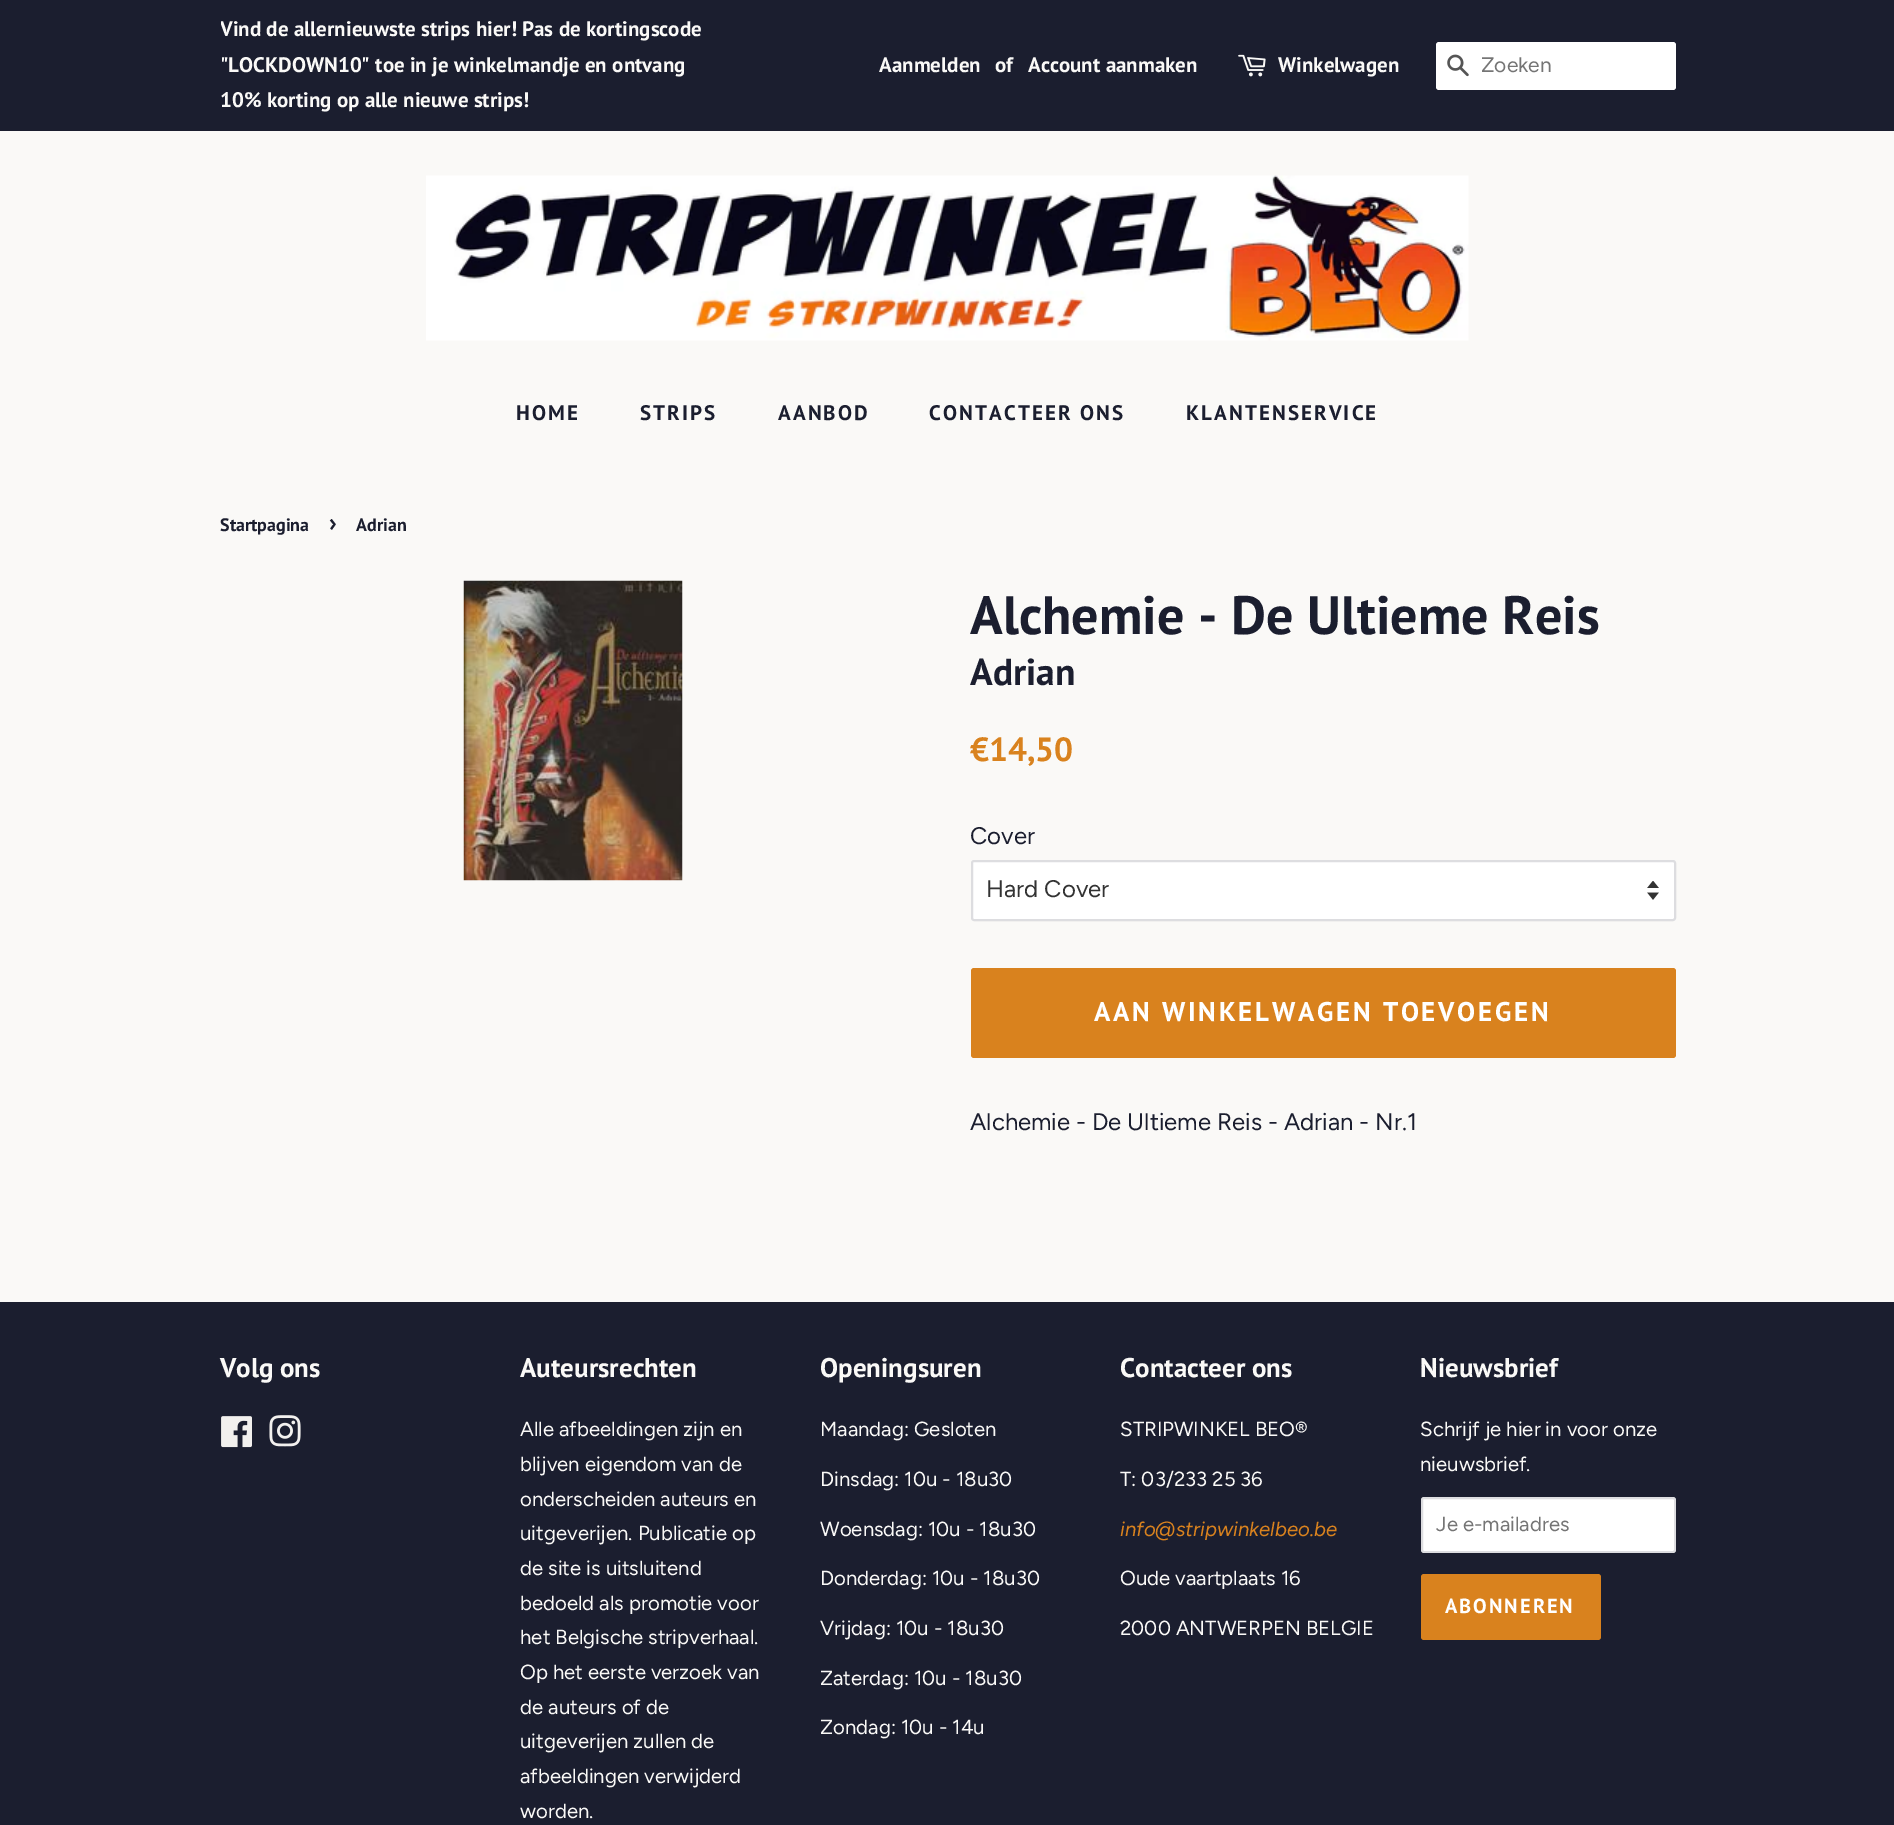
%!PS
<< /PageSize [1894 1825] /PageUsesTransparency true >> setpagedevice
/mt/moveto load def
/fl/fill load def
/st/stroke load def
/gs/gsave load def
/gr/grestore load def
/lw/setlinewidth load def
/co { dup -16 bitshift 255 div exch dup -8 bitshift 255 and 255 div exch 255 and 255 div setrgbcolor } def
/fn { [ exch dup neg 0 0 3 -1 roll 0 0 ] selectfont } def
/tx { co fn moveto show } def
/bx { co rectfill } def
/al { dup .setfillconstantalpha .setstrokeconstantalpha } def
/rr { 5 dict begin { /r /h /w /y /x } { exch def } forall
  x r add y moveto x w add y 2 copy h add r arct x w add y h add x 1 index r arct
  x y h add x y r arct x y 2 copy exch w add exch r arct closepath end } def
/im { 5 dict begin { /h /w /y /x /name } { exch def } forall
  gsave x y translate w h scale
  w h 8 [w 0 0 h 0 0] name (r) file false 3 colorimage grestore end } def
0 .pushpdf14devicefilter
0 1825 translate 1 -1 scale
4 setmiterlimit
0 0 1894 1825 16#FAF9F7 bx
0 0 1894 131 16#1B1E2F bx
(media/1.raw) 1238 54 28 23 im
16#FFFFFF co
1436 42 240 48 3 rr fl
(media/2.raw) 1447 54 22 23 im
(media/3.raw) 426 175 1043 166 im
(media/4.raw) 463 580 220 301 im
971 860 705 61 3 rr fl
(media/5.raw) 1647 881 12 19 im
0.15 al
16#1B1E2F co
2 lw
972 861 703 59 2 rr st
1 al
16#D9821E co
971 968 705 90 3 rr fl
0 1302 1894 523 16#1B1E2F bx
(media/6.raw) 221 1416 31 32 im
(media/7.raw) 269 1415 32 32 im
16#FFFFFF co
1421 1497 255 56 3 rr fl
0.15 al
16#1B1E2F co
1422 1498 253 54 2 rr st
1 al
16#D9821E co
1421 1574 180 66 3 rr fl
gs
221 12 484 107 rectclip
(Vind de allernieuwste strips hier!) 220 36 /PTSans-Bold 21 16#FAF9F7 tx
gr
(Pas de kortingscode) 522 36 /PTSans-Bold 21 16#FAF9F7 tx
("LOCKDOWN10" toe in je winkelmandje en ontvang) 220 72 /PTSans-Bold 21 16#FAF9F7 tx
(10% korting op alle nieuwe strips!) 220 107 /PTSans-Bold 21 16#FAF9F7 tx
(Aanmelden) 879 72 /PTSans-Bold 21 16#FAF9F7 tx
(of) 995 72 /PTSans-Bold 21 16#FAF9F7 tx
(Account aanmaken) 1028 72 /PTSans-Bold 21 16#FAF9F7 tx
(Winkelwagen) 1278 72 /PTSans-Bold 21 16#FAF9F7 tx
(Zoeken) 1481 72 /Figtree-Regular 21 16#757575 tx
/PTSans-Bold 21 fn
16#1B1E2F co
516 420 mt 2.1 0 (HOME) ashow
640 420 mt 2.1 0 (STRIPS) ashow
778 420 mt 2.1 0 (AANBOD) ashow
929 420 mt 2.1 0 (CONTACTEER ONS) ashow
1186 420 mt 2.1 0 (KLANTENSERVICE) ashow
(Startpagina) 220 531 /PTSans-Bold 18 16#1B1E2F tx
(›) 329 531 /PTSans-Bold 25 16#1B1E2F tx
(Adrian) 356 531 /PTSans-Bold 18 16#1B1E2F tx
(Alchemie - De Ultieme Reis) 970 634 /PTSans-Bold 54 16#1B1E2F tx
(Adrian) 970 685 /PTSans-Bold 37.5 16#1B1E2F tx
(€14,50) 970 761 /PTSans-Bold 33.5 16#D9821E tx
(Cover) 970 844 /Figtree-Regular 24 16#1B1E2F tx
(Hard Cover) 986 897 /Figtree-Regular 24 16#333333 tx
/PTSans-Bold 27 fn
16#FFFFFF co
1094 1021 mt 2.7 0 (AAN WINKELWAGEN TOEVOEGEN) ashow
(Alchemie - De Ultieme Reis - Adrian - Nr.1) 970 1130 /Figtree-Regular 24 16#1B1E2F tx
(Volg ons) 220 1377 /PTSans-Bold 27 16#FAF9F7 tx
(Auteursrechten) 520 1377 /PTSans-Bold 27 16#FAF9F7 tx
(Alle afbeeldingen zijn en) 520 1436 /Figtree-Regular 20.4 16#FAF9F7 tx
(blijven eigendom van de) 520 1471 /Figtree-Regular 20.4 16#FAF9F7 tx
(onderscheiden auteurs en) 520 1506 /Figtree-Regular 20.4 16#FAF9F7 tx
(uitgeverijen. Publicatie op) 520 1540 /Figtree-Regular 20.4 16#FAF9F7 tx
(de site is uitsluitend) 520 1575 /Figtree-Regular 20.4 16#FAF9F7 tx
(bedoeld als promotie voor) 520 1610 /Figtree-Regular 20.4 16#FAF9F7 tx
(het Belgische stripverhaal.) 520 1644 /Figtree-Regular 20.4 16#FAF9F7 tx
(Op het eerste verzoek van) 520 1679 /Figtree-Regular 20.4 16#FAF9F7 tx
(de auteurs of de) 520 1714 /Figtree-Regular 20.4 16#FAF9F7 tx
(uitgeverijen zullen de) 520 1748 /Figtree-Regular 20.4 16#FAF9F7 tx
(afbeeldingen verwijderd) 520 1783 /Figtree-Regular 20.4 16#FAF9F7 tx
(worden.) 520 1818 /Figtree-Regular 20.4 16#FAF9F7 tx
(Openingsuren) 820 1377 /PTSans-Bold 27 16#FAF9F7 tx
(Maandag: Gesloten) 820 1436 /Figtree-Regular 20.4 16#FAF9F7 tx
(Dinsdag: 10u - 18u30) 820 1486 /Figtree-Regular 20.4 16#FAF9F7 tx
(Woensdag: 10u - 18u30) 820 1536 /Figtree-Regular 20.4 16#FAF9F7 tx
(Donderdag: 10u - 18u30) 820 1585 /Figtree-Regular 20.4 16#FAF9F7 tx
(Vrijdag: 10u - 18u30) 820 1635 /Figtree-Regular 20.4 16#FAF9F7 tx
(Zaterdag: 10u - 18u30) 820 1685 /Figtree-Regular 20.4 16#FAF9F7 tx
(Zondag: 10u - 14u) 820 1734 /Figtree-Regular 20.4 16#FAF9F7 tx
(Contacteer ons) 1120 1377 /PTSans-Bold 27 16#FAF9F7 tx
(STRIPWINKEL BEO®) 1120 1436 /Figtree-Regular 20.4 16#FAF9F7 tx
(T: 03/233 25 36) 1120 1486 /Figtree-Regular 20.4 16#FAF9F7 tx
(info@stripwinkelbeo.be) 1120 1536 /Figtree-Italic 20.4 16#D9821E tx
(Oude vaartplaats 16) 1120 1585 /Figtree-Regular 20.4 16#FAF9F7 tx
(2000 ANTWERPEN BELGIE) 1120 1635 /Figtree-Regular 20.4 16#FAF9F7 tx
(Nieuwsbrief) 1420 1377 /PTSans-Bold 27 16#FAF9F7 tx
(Schrijf je hier in voor onze) 1420 1436 /Figtree-Regular 20.4 16#FAF9F7 tx
(nieuwsbrief.) 1420 1471 /Figtree-Regular 20.4 16#FAF9F7 tx
(Je e-mailadres) 1436 1531 /Figtree-Regular 20.4 16#757575 tx
/PTSans-Bold 20.4 fn
16#FFFFFF co
1445 1613 mt 2 0 (ABONNEREN) ashow
.poppdf14devicefilter showpage
